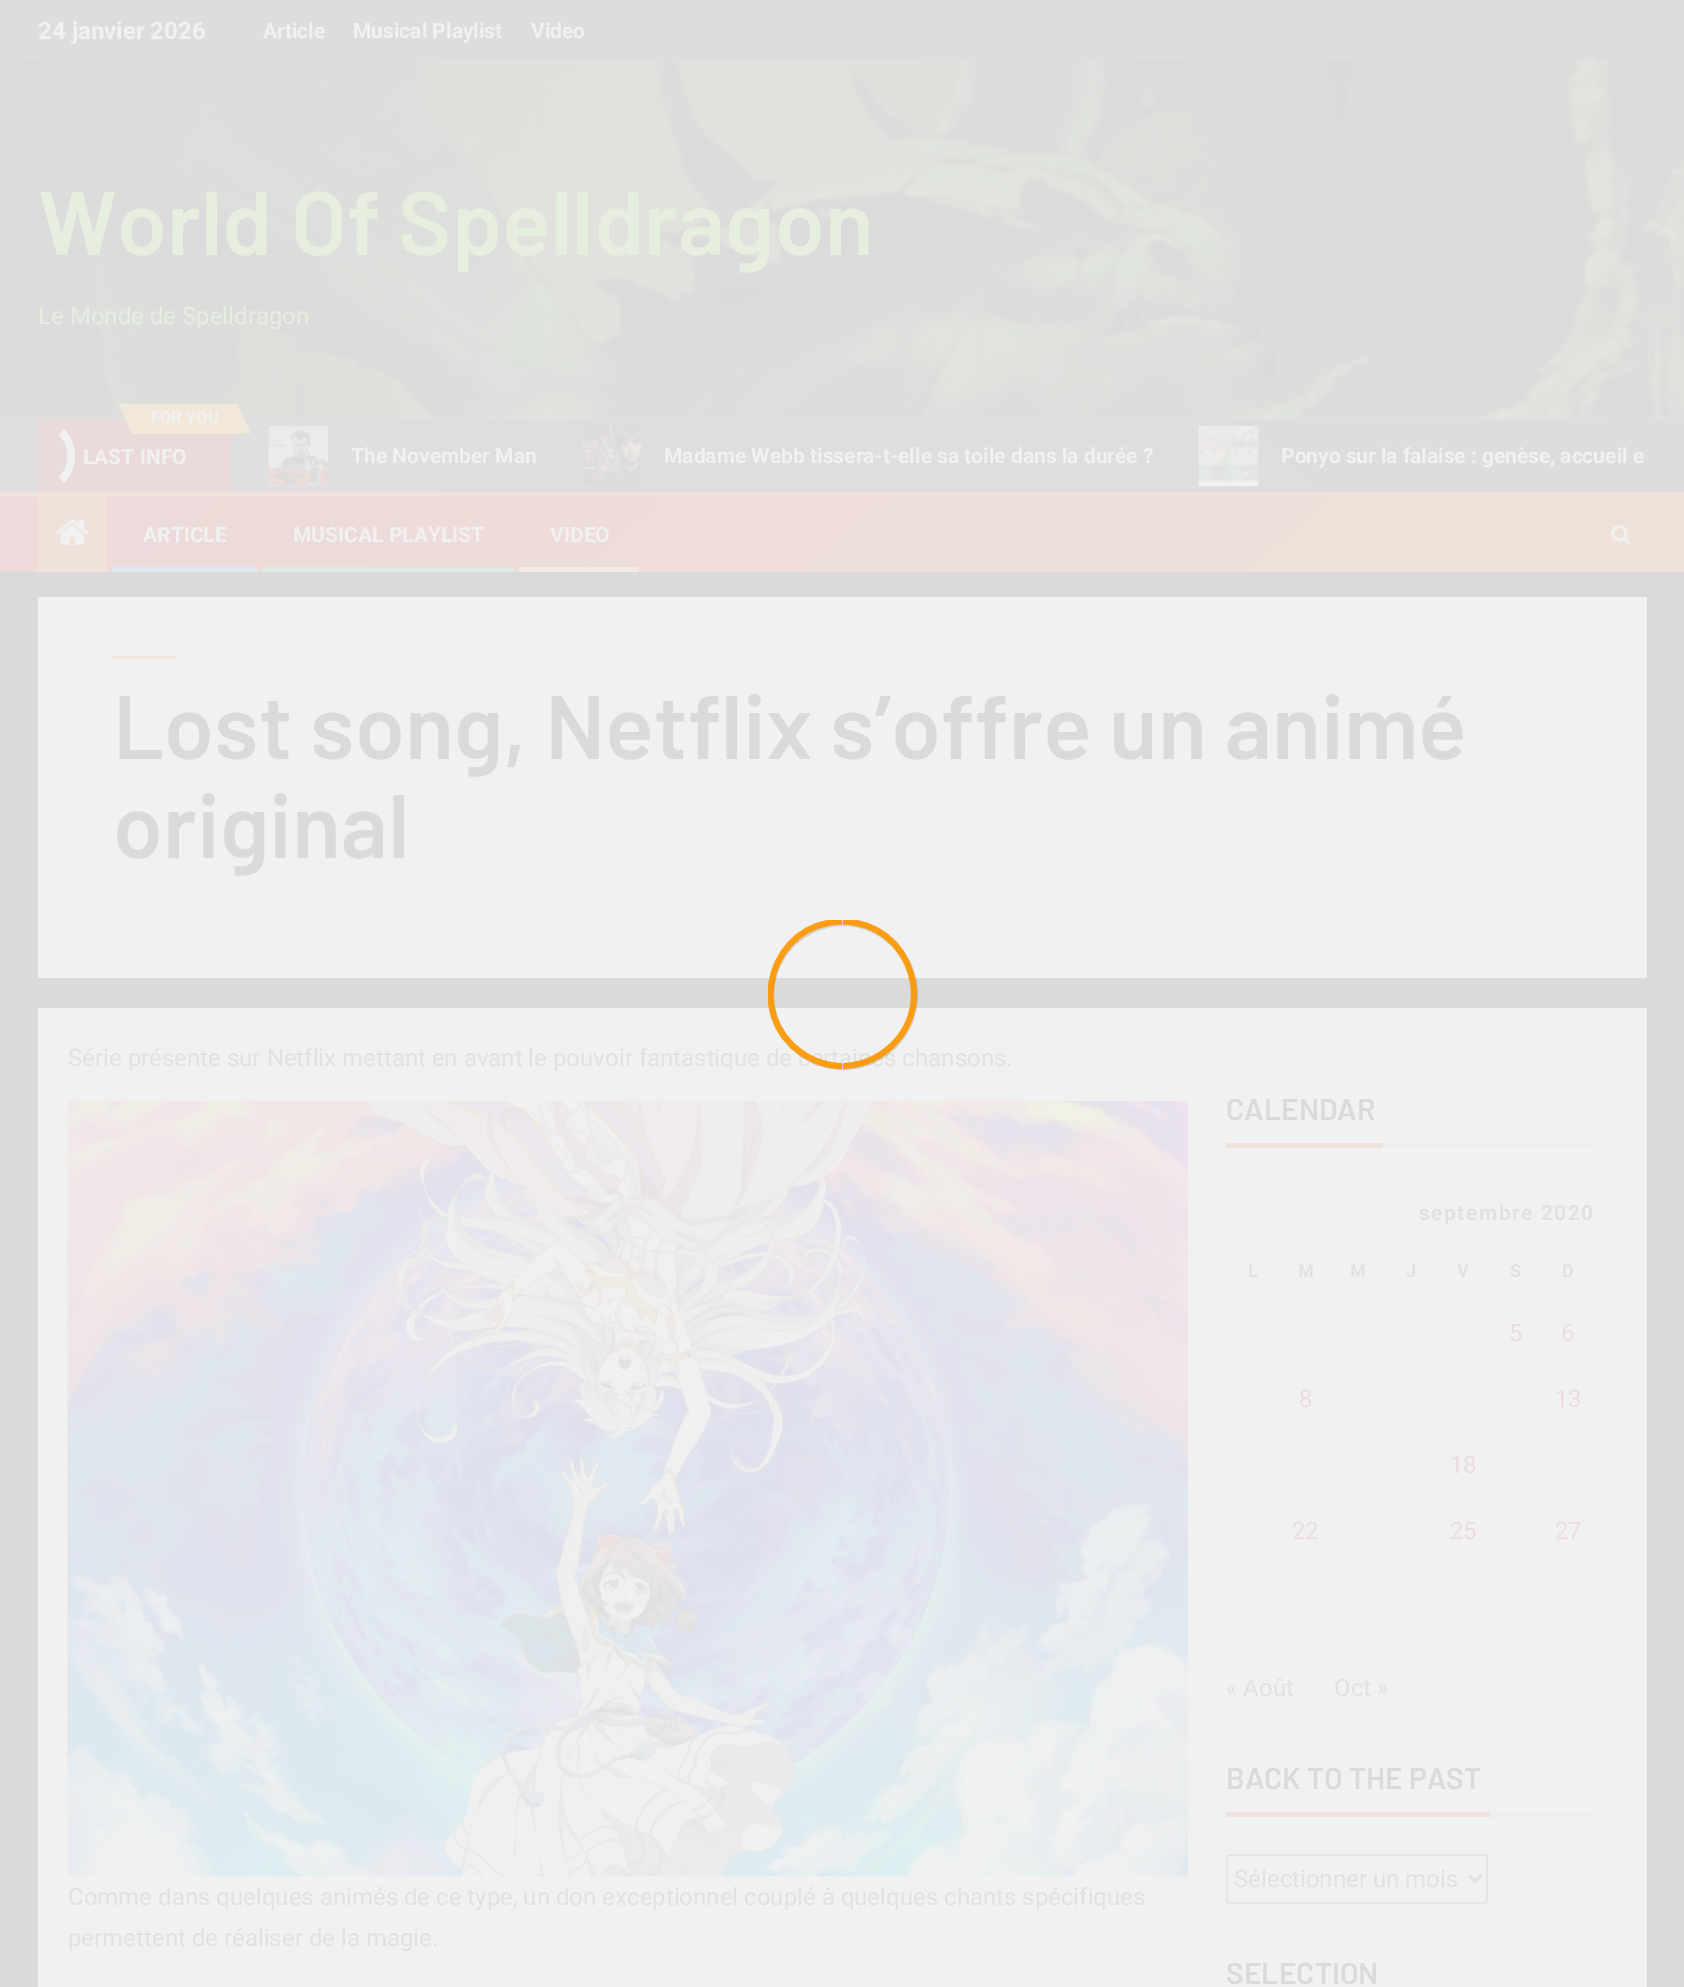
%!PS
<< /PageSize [1684 1987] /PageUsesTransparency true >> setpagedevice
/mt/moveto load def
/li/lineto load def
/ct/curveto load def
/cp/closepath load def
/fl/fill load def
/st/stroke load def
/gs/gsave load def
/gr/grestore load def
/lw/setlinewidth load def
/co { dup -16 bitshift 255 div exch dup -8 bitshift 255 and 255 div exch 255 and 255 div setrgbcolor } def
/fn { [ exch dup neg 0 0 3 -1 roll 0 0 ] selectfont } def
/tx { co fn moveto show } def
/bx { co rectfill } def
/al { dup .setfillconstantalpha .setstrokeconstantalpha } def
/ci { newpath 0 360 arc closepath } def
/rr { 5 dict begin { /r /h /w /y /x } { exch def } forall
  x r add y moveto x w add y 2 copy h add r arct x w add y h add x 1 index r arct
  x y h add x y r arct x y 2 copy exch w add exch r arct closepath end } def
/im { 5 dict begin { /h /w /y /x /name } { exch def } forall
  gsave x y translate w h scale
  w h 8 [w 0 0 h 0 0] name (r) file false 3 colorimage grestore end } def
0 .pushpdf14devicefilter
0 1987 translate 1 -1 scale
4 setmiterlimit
0 0 1684 1987 16#DADADA bx
0 418 1684 1 16#E6E6E6 bx
0 0 1684 60 16#DDDDDD bx
(media/1.raw) 0 60 1684 359 im
gs 0 419 mt 1684 419 li 1684 492 li 0 492 li cp clip newpath
<< /ShadingType 2 /ColorSpace /DeviceRGB /Coords [403 895 1282 16] /Extend [true true] /Function << /FunctionType 2 /Domain [0 1] /C0 [.878 .878 .878] /C1 [.867 .867 .867] /N 1 >> >> shfill gr
38 419 193 73 16#EADADA bx
132 404 105 30 16#F1E8DA bx
118.5 403.5 mt 132 403.5 li 132 433.5 li cp fl
250.5 433.5 mt 237 433.5 li 237 403.5 li cp fl
16#F1F1F1 co
7.5 lw
61.5 432 mt 74.5 445 74.5 467 61.5 480 ct st
(media/2.raw) 268 426 61 60 im
(media/3.raw) 582 426 60 60 im
(media/4.raw) 1198 426 61 60 im
gs 0 497 mt 1684 497 li 1684 572 li 0 572 li cp clip newpath
<< /ShadingType 2 /ColorSpace /DeviceRGB /Coords [476 97 1209 971] /Extend [true true] /Function << /FunctionType 2 /Domain [0 1] /C0 [.929 .855 .855] /C1 [.941 .886 .855] /N 1 >> >> shfill gr
0 492 1684 5 16#F0E2DA bx
38 497 69 75 16#F0E2DA bx
(media/5.raw) 56 519 33 26 im
113 567 144 5 16#DDE8F0 bx
263 567 252 5 16#E1EAE2 bx
519 567 120 5 16#F1ECE0 bx
(media/6.raw) 1611 525 20 20 im
38 597 1609 381 16#F1F1F1 bx
113 656 63 3 16#F0E6E0 bx
38 1008 1609 979 16#F1F1F1 bx
(media/7.raw) 67 1101 1121 776 im
1226 1143 157 5 16#F0E2DA bx
1383 1143 212 5 16#EEEEEE bx
1226 1812 264 5 16#F0E2DA bx
1490 1812 105 5 16#EEEEEE bx
16#E5E5E5 co
2 lw
1227 1855 260 48 2 rr st
16#E1E1E1 co
3 lw
1469 1875.5 mt 1475 1881.5 li 1481 1875.5 li st
(24 janvier 2026) 38 39 /Roboto-Bold 24 16#F1F1F1 tx
(Article) 263 38 /Roboto-Bold 21 16#F1F1F1 tx
(Musical Playlist) 353 38 /Roboto-Bold 21 16#F1F1F1 tx
(Video) 531 38 /Roboto-Bold 21 16#F1F1F1 tx
(World Of Spelldragon) 38 255 /Barlow-SemiBold 90 16#E6EEE0 tx
(Le Monde de Spelldragon) 38 324 /Roboto-Regular 24 16#E6EEE0 tx
(FOR YOU) 151 423 /Roboto-Bold 16.5 16#F1F1F1 tx
(LAST INFO) 83 464 /Roboto-Bold 21 16#F1F1F1 tx
(The November Man) 351 463 /Roboto-Bold 21 16#F1F1F1 tx
(Madame Webb tissera-t-elle sa toile dans la durée ?) 664 463 /Roboto-Bold 21 16#F1F1F1 tx
1281 463 mt -.25 0 32 (Ponyo sur la falaise : genèse, accueil e) widthshow
(ARTICLE) 143 542 /Roboto-Bold 21 16#F1F1F1 tx
(MUSICAL PLAYLIST) 293 542 /Roboto-Bold 21 16#F1F1F1 tx
(VIDEO) 550 542 /Roboto-Bold 21 16#F1F1F1 tx
(Lost song, Netflix s’offre un animé) 113 759 /Barlow-SemiBold 90 16#DADADA tx
(original) 113 858 /Barlow-SemiBold 90 16#DADADA tx
(Série présente sur Netflix mettant en avant le pouvoir fantastique de certaines chansons.) 68 1066 /Roboto-Regular 24 16#E1E1E1 tx
(Comme dans quelques animés de ce type, un don exceptionnel couplé à quelques chants spécifiques) 68 1905 /Roboto-Regular 24 16#E1E1E1 tx
(permettent de réaliser de la magie.) 68 1946 /Roboto-Regular 24 16#E1E1E1 tx
(CALENDAR) 1226 1120 /Barlow-SemiBold 30 16#DADADA tx
/Roboto-Bold 21 fn
16#E1E1E1 co
1419 1220 mt 1.5 0 (septembre 2020) ashow
(L) 1248 1277 /Roboto-Bold 18 16#E1E1E1 tx
(M) 1298 1277 /Roboto-Bold 18 16#E1E1E1 tx
(M) 1350 1277 /Roboto-Bold 18 16#E1E1E1 tx
(J) 1406 1277 /Roboto-Bold 18 16#E1E1E1 tx
(V) 1457 1277 /Roboto-Bold 18 16#E1E1E1 tx
(S) 1510 1277 /Roboto-Bold 18 16#E1E1E1 tx
(D) 1562 1277 /Roboto-Bold 18 16#E1E1E1 tx
(5) 1509 1341 /Roboto-Regular 24 16#EBDDDD tx
(6) 1561 1341 /Roboto-Regular 24 16#EBDDDD tx
(8) 1299 1407 /Roboto-Regular 24 16#EBDDDD tx
(13) 1555 1407 /Roboto-Regular 24 16#EBDDDD tx
(18) 1450 1473 /Roboto-Regular 24 16#EBDDDD tx
(22) 1292 1539 /Roboto-Regular 24 16#EBDDDD tx
(25) 1450 1539 /Roboto-Regular 24 16#EBDDDD tx
(27) 1555 1539 /Roboto-Regular 24 16#EBDDDD tx
(« Août) 1226 1696 /Roboto-Regular 24 16#E1E1E1 tx
(Oct ») 1334 1696 /Roboto-Regular 24 16#E1E1E1 tx
(BACK TO THE PAST) 1226 1789 /Barlow-SemiBold 30 16#DADADA tx
(Sélectionner un mois) 1234 1887 /Roboto-Regular 24 16#E1E1E1 tx
(SELECTION) 1226 1984 /Barlow-SemiBold 30 16#DADADA tx
0.18 al
16#404040 co
6 lw
843 995 72 ci st
gs
768 920 75 150 rectclip
0.91 al
16#FF9800 co
842 1066 mt 828 1066 814 1061.5 802.5 1053.5 ct 743.5 1014.5 771.5 921.5 842 921.5 ct st
gr
gs
843 920 75 150 rectclip
0.91 al
16#FF9800 co
842 921.5 mt 913 921.5 941 1014.5 882 1053.5 ct 870.5 1061.5 856.5 1066 842 1066 ct st
gr
.poppdf14devicefilter showpage
